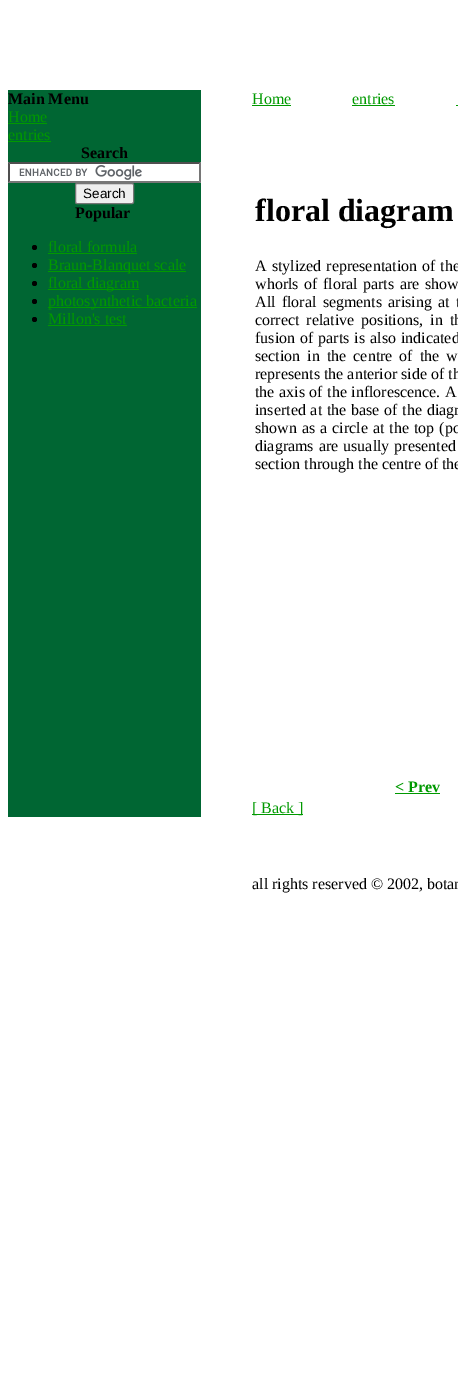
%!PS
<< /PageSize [458 1386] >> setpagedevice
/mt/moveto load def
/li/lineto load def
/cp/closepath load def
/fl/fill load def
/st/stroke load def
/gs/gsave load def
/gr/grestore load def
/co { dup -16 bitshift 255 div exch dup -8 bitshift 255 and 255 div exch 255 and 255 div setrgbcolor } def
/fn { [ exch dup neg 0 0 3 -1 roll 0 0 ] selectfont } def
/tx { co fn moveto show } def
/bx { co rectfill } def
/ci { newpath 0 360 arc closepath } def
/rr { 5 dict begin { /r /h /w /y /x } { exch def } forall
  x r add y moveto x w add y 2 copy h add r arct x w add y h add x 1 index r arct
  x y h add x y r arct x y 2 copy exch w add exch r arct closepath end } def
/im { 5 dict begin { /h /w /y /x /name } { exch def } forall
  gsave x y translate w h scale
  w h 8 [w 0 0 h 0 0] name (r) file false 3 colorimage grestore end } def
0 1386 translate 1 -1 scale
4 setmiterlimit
0 0 458 1386 16#FFFFFF bx
8 90 193 727 16#006633 bx
8 123 39 1 16#009900 bx
8 141 43 1 16#009900 bx
8 162 193 21 16#FFFFFF bx
(media/1.raw) 19 165 123 15 im
16#4F4F4F co
8 162 mt 201 162 li 199 164 li 10 164 li cp fl
16#767676 co
201 162 mt 201 183 li 199 181 li 199 164 li cp fl
201 183 mt 8 183 li 10 181 li 199 181 li cp fl
16#4F4F4F co
8 183 mt 8 162 li 10 164 li 10 181 li cp fl
16#EFEFEF co
75.5 183.5 58 20 1.5 rr gs fl gr
16#767676 co
st
16#000000 co
34.5 247.5 2.5 ci fl
48 253 89 1 16#009900 bx
16#000000 co
34.5 265.5 2.5 ci fl
48 271 138 1 16#009900 bx
16#000000 co
34.5 283.5 2.5 ci fl
48 289 91 1 16#009900 bx
16#000000 co
34.5 301.5 2.5 ci fl
48 307 149 1 16#009900 bx
16#000000 co
34.5 319.5 2.5 ci fl
48 325 79 1 16#009900 bx
252 105 39 1 16#009900 bx
352 105 43 1 16#009900 bx
456 105 2 1 16#009900 bx
395 793 45 1 16#009900 bx
252 814 51 1 16#009900 bx
(Main Menu) 8 104 /LiberationSerif-Bold 16 16#000000 tx
(Home) 8 122 /LiberationSerif-Regular 16 16#009900 tx
(entries) 8 140 /LiberationSerif-Regular 16 16#009900 tx
(Search) 81 158 /LiberationSerif-Bold 16 16#000000 tx
(Search) 83 198 /LiberationSans-Regular 13.5 16#000000 tx
(Popular) 75 218 /LiberationSerif-Bold 16 16#000000 tx
(floral formula) 48 252 /LiberationSerif-Regular 16 16#009900 tx
(Braun-Blanquet scale) 48 270 /LiberationSerif-Regular 16 16#009900 tx
(floral diagram) 48 288 /LiberationSerif-Regular 16 16#009900 tx
(photosynthetic bacteria) 48 306 /LiberationSerif-Regular 16 16#009900 tx
(Millon's test) 48 324 /LiberationSerif-Regular 16 16#009900 tx
(Home) 252 104 /LiberationSerif-Regular 16 16#009900 tx
(entries) 352 104 /LiberationSerif-Regular 16 16#009900 tx
(floral diagram) 255 221 /LiberationSerif-Bold 32 16#000000 tx
/LiberationSerif-Regular 16 fn
255 271 mt 1 0 32 (A stylized representation of the) widthshow
255 289 mt 1.5 0 32 (whorls of floral parts are show) widthshow
255 307 mt 2.25 0 32 (All floral segments arising at t) widthshow
255 325 mt 3 0 32 (correct relative positions, in th) widthshow
255 343 mt 1 0 32 (fusion of parts is also indicated) widthshow
255 361 mt 3 0 32 (section in the centre of the w) widthshow
(represents the anterior side of th) 255 379 /LiberationSerif-Regular 16 16#000000 tx
255 397 mt .5 0 32 (the axis of the inflorescence. A) widthshow
255 415 mt .75 0 32 (inserted at the base of the diagr) widthshow
255 433 mt 1 0 32 (shown as a circle at the top \(po) widthshow
255 451 mt 1 0 32 (diagrams are usually presented) widthshow
(section through the centre of the) 255 469 /LiberationSerif-Regular 16 16#000000 tx
(< Prev) 395 792 /LiberationSerif-Bold 16 16#009900 tx
([ Back ]) 252 813 /LiberationSerif-Regular 16 16#009900 tx
(all rights reserved © 2002, botan) 252 889 /LiberationSerif-Regular 16 16#000000 tx
showpage
